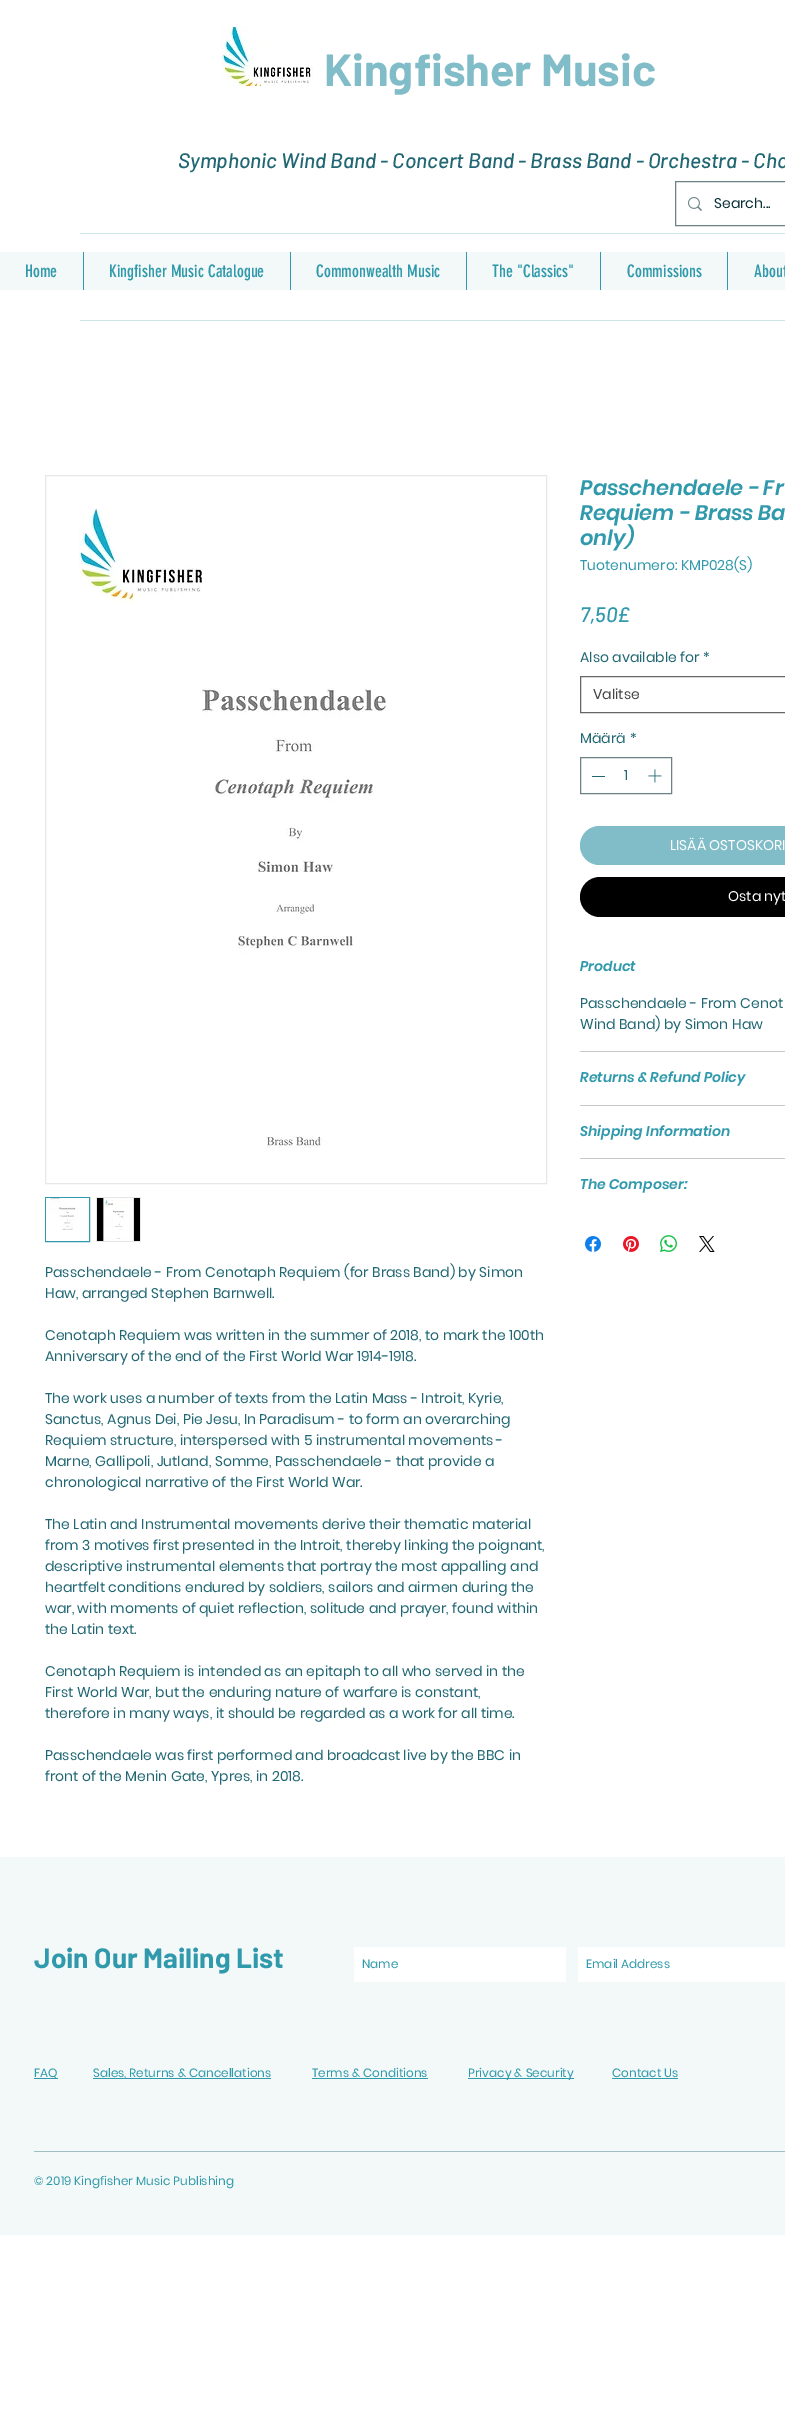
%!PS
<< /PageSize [785 2409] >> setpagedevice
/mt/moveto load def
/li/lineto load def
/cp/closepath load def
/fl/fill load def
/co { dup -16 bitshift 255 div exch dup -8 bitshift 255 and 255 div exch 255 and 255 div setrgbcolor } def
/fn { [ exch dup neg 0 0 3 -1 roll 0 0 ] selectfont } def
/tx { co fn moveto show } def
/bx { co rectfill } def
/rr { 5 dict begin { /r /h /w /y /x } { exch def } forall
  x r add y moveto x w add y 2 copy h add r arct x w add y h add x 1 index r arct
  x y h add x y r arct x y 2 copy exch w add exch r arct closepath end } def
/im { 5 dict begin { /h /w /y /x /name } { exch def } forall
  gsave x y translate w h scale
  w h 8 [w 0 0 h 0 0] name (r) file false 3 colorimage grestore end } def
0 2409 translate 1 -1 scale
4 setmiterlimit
0 0 785 2409 16#FFFFFF bx
(media/1.raw) 221 27 92 59 im
16#6B8287 co
675.5 181.5 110 44 rectstroke
(media/2.raw) 688 197 14 14 im
80 233 705 1 16#CCE5E9 bx
0 252 785 38 16#F3F8F8 bx
83 252 1 38 16#309AAC bx
290 252 1 38 16#309AAC bx
466 252 1 38 16#309AAC bx
600 252 1 38 16#309AAC bx
727 252 1 38 16#309AAC bx
80 320 705 1 16#CCE5E9 bx
16#666666 co
580.5 676.5 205 36 rectstroke
16#6B8287 co
580.5 757.5 91 36 rectstroke
592 776 13 1 16#206773 bx
(media/3.raw) 648 769 14 14 im
16#80BDC8 co
580 826 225 39 19.5 rr fl
16#000000 co
580 877 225 40 20 rr fl
580 1051 205 1 16#C7C7C7 bx
580 1105 205 1 16#C7C7C7 bx
580 1158 205 1 16#C7C7C7 bx
(media/4.raw) 585 1236 16 16 im
(media/5.raw) 623 1236 16 16 im
(media/6.raw) 660 1235 17 17 im
(media/7.raw) 699 1236 16 16 im
16#E8E6E6 co
45.5 475.5 501 708 rectstroke
(media/8.raw) 78 508 308 640 im
16#309AAC co
45.5 1197.5 44 44 rectstroke
(media/9.raw) 46 1198 43 43 im
96 1197 45 45 16#E8E6E6 bx
(media/10.raw) 97 1198 43 43 im
16#FFFFFF co
113 1213 mt 113 1226 li 125 1219.5 li cp fl
0 1857 785 378 16#F3F8F8 bx
354 1947 212 35 16#FFFFFF bx
578 1947 207 35 16#FFFFFF bx
34 2078 24 1 16#309AAC bx
93 2078 178 1 16#309AAC bx
312 2078 116 1 16#309AAC bx
468 2078 106 1 16#309AAC bx
612 2078 66 1 16#309AAC bx
34 2151 751 1 16#9FBEC3 bx
(Kingfisher Music) 324 86 /Barlow-Bold 45 16#80BDC8 tx
(Symphonic Wind Band - Concert Band - Brass Band - Orchestra - Cho) 178 168 /Barlow-MediumItalic 21 16#206773 tx
(Search...) 714 208 /Poppins-Regular 14 16#092F37 tx
(Home) 25 277 /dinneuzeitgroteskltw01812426-Regular 17 16#309AAC tx
(Kingfisher Music Catalogue) 109 277 /dinneuzeitgroteskltw01812426-Regular 17 16#309AAC tx
(Commonwealth Music) 316 277 /dinneuzeitgroteskltw01812426-Regular 17 16#309AAC tx
(The "Classics") 492 277 /dinneuzeitgroteskltw01812426-Regular 17 16#309AAC tx
(Commissions) 627 277 /dinneuzeitgroteskltw01812426-Regular 17 16#309AAC tx
(About) 754 277 /dinneuzeitgroteskltw01812426-Regular 17 16#309AAC tx
(Passchendaele - Fr) 580 495 /Poppins-SemiBoldItalic 21 16#309AAC tx
(Requiem - Brass Ba) 580 520 /Poppins-SemiBoldItalic 21 16#309AAC tx
(only\)) 580 545 /Poppins-SemiBoldItalic 21 16#309AAC tx
(Tuotenumero: KMP028\(S\)) 580 570 /Poppins-Regular 14 16#309AAC tx
(7,50£) 580 622 /Barlow-MediumItalic 21 16#309AAC tx
(Also available for) 580 662 /Poppins-Regular 14 16#206773 tx
(*) 703 662 /Poppins-Regular 14 16#206773 tx
(Valitse) 593 699 /Poppins-Regular 14 16#444444 tx
(Määrä) 580 743 /Poppins-Regular 14 16#206773 tx
(*) 630 743 /Poppins-Regular 14 16#206773 tx
(1) 624 780 /Poppins-Regular 14 16#206773 tx
(LISÄÄ OSTOSKORI) 670 850 /Poppins-Regular 14 16#FFFFFF tx
(Osta nyt) 728 901 /Poppins-Regular 14 16#FFFFFF tx
(Product) 580 971 /Poppins-SemiBoldItalic 14 16#309AAC tx
(Passchendaele - From Cenot) 580 1008 /Poppins-Regular 14 16#206773 tx
(Wind Band\) by Simon Haw) 580 1029 /Poppins-Regular 14 16#206773 tx
(Returns & Refund Policy) 580 1082 /Poppins-SemiBoldItalic 14 16#309AAC tx
(Shipping Information) 580 1136 /Poppins-SemiBoldItalic 14 16#309AAC tx
(The Composer:) 580 1189 /Poppins-SemiBoldItalic 14 16#309AAC tx
(Passchendaele - From Cenotaph Requiem \(for Brass Band\) by Simon) 45 1277 /Poppins-Regular 14 16#206773 tx
(Haw, arranged Stephen Barnwell.) 45 1298 /Poppins-Regular 14 16#206773 tx
(Cenotaph Requiem was written in the summer of 2018, to mark the 100th) 45 1340 /Poppins-Regular 14 16#206773 tx
(Anniversary of the end of the First World War 1914-1918.) 45 1361 /Poppins-Regular 14 16#206773 tx
(The work uses a number of texts from the Latin Mass - Introit, Kyrie,) 45 1403 /Poppins-Regular 14 16#206773 tx
(Sanctus, Agnus Dei, Pie Jesu, In Paradisum - to form an overarching) 45 1424 /Poppins-Regular 14 16#206773 tx
(Requiem structure, interspersed with 5 instrumental movements -) 45 1445 /Poppins-Regular 14 16#206773 tx
(Marne, Gallipoli, Jutland, Somme, Passchendaele - that provide a) 45 1466 /Poppins-Regular 14 16#206773 tx
(chronological narrative of the First World War.) 45 1487 /Poppins-Regular 14 16#206773 tx
(The Latin and Instrumental movements derive their thematic material) 45 1529 /Poppins-Regular 14 16#206773 tx
(from 3 motives first presented in the Introit, thereby linking the poignant,) 45 1550 /Poppins-Regular 14 16#206773 tx
(descriptive instrumental elements that portray the most appalling and) 45 1571 /Poppins-Regular 14 16#206773 tx
(heartfelt conditions endured by soldiers, sailors and airmen during the) 45 1592 /Poppins-Regular 14 16#206773 tx
(war, with moments of quiet reflection, solitude and prayer, found within) 45 1613 /Poppins-Regular 14 16#206773 tx
(the Latin text.) 45 1634 /Poppins-Regular 14 16#206773 tx
(Cenotaph Requiem is intended as an epitaph to all who served in the) 45 1676 /Poppins-Regular 14 16#206773 tx
(First World War, but the enduring nature of warfare is constant,) 45 1697 /Poppins-Regular 14 16#206773 tx
(therefore in many ways, it should be regarded as a work for all time.) 45 1718 /Poppins-Regular 14 16#206773 tx
(Passchendaele was first performed and broadcast live by the BBC in) 45 1760 /Poppins-Regular 14 16#206773 tx
(front of the Menin Gate, Ypres, in 2018.) 45 1781 /Poppins-Regular 14 16#206773 tx
(Join Our Mailing List) 34 1968 /Barlow-Bold 28 16#309AAC tx
(Name) 362 1968 /Poppins-Regular 12 16#309AAC tx
(Email Address) 586 1968 /Poppins-Regular 12 16#309AAC tx
(FAQ) 34 2077 /Poppins-Regular 12 16#309AAC tx
(Sales, Returns & Cancellations) 93 2077 /Poppins-Regular 12 16#309AAC tx
(Terms & Conditions) 312 2077 /Poppins-Regular 12 16#309AAC tx
(Privacy & Security) 468 2077 /Poppins-Regular 12 16#309AAC tx
(Contact Us) 612 2077 /Poppins-Regular 12 16#309AAC tx
(© 2019 Kingfisher Music Publishing) 34 2185 /Poppins-Regular 12 16#309AAC tx
showpage
